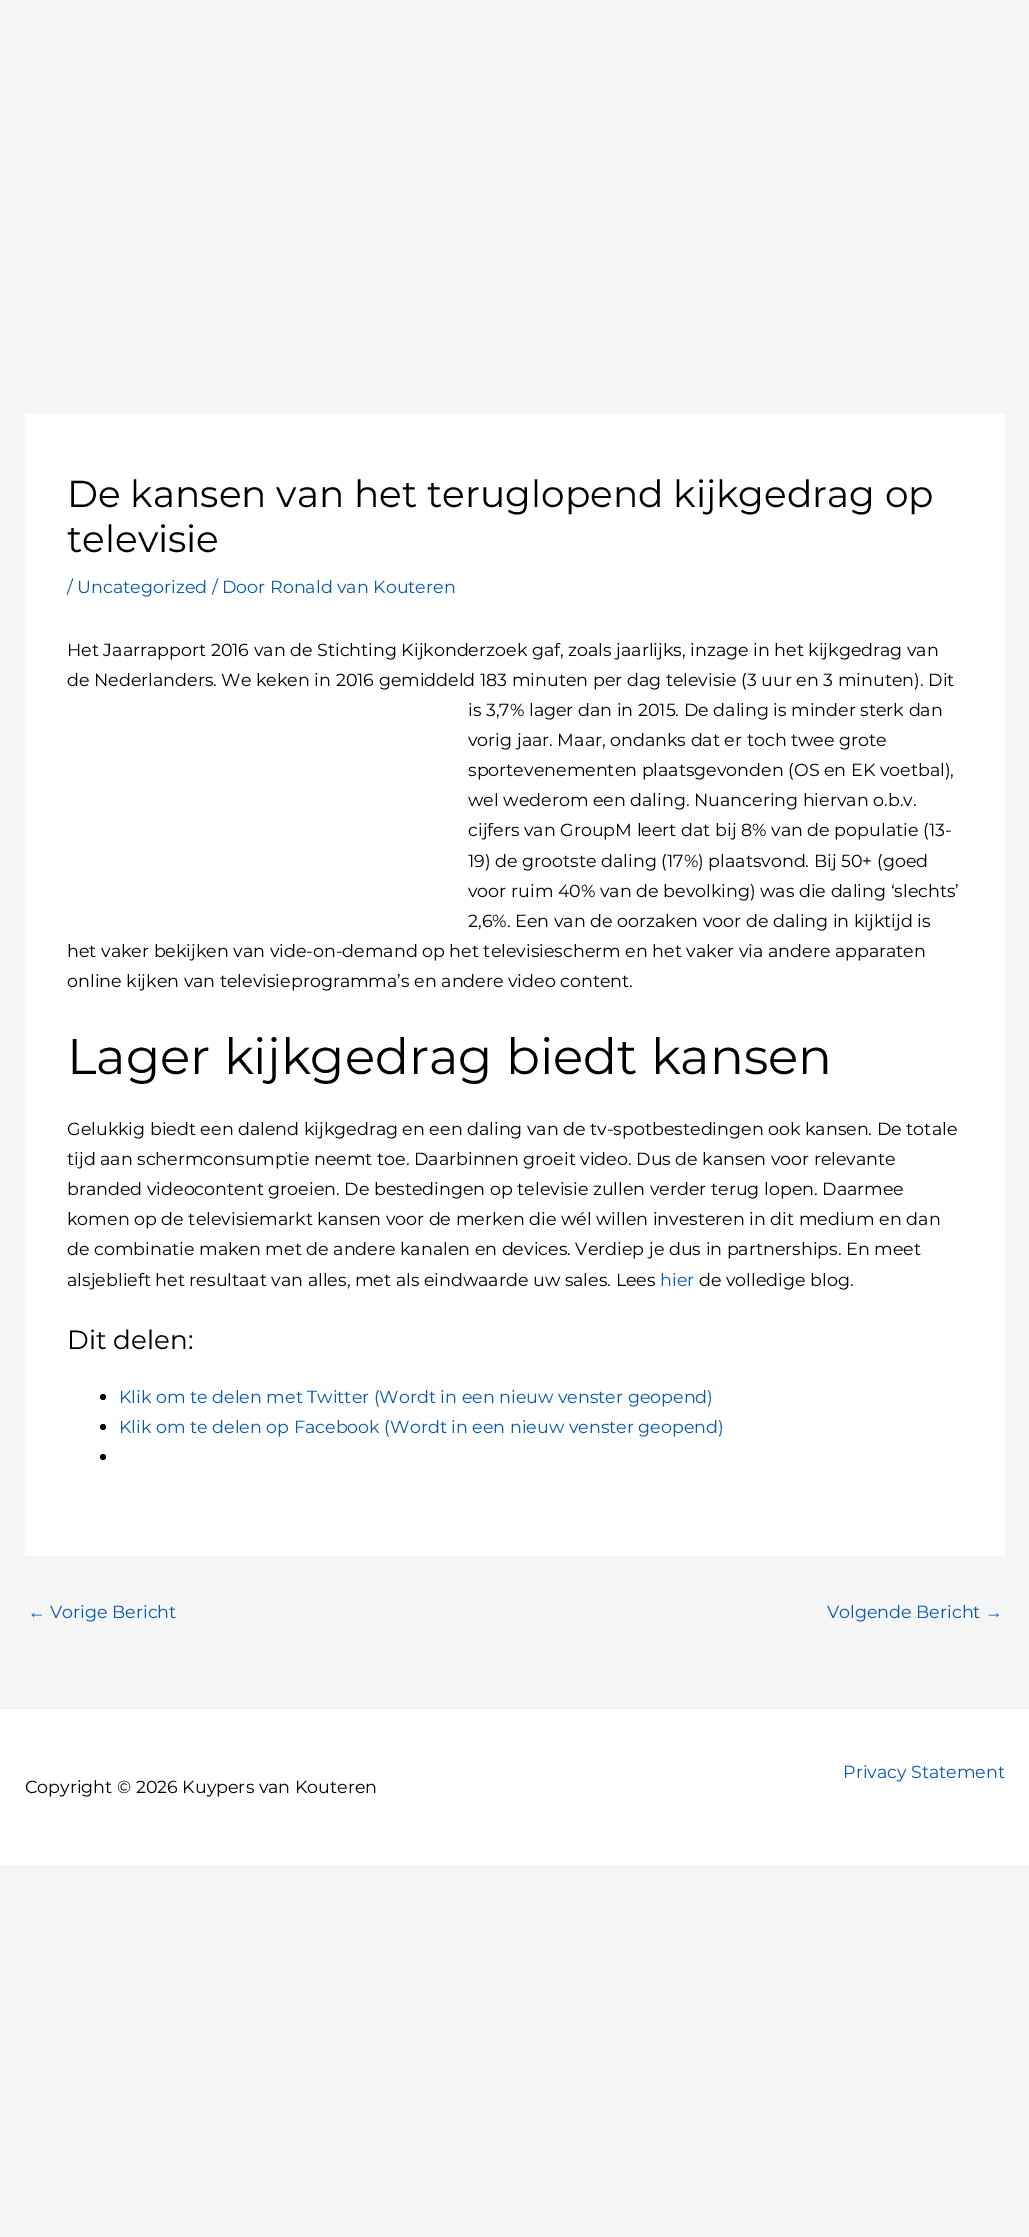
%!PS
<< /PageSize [1029 2237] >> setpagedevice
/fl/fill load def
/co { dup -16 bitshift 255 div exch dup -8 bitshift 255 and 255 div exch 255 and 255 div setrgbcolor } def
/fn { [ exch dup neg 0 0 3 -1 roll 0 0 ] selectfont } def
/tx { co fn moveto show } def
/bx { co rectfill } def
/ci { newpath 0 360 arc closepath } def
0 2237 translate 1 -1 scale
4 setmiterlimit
0 0 1029 2237 16#F5F5F5 bx
25 414 980 1142 16#FFFFFF bx
16#000000 co
103 1397 3 ci fl
103 1427 3 ci fl
103 1457 3 ci fl
0 1708 1029 1 16#F2F2F2 bx
0 1709 1029 156 16#FFFFFF bx
(De kansen van het teruglopend kijkgedrag op) 67 507 /Montserrat-Regular 37.5 16#000000 tx
(televisie) 67 552 /Montserrat-Regular 37.5 16#000000 tx
(/ Uncategorized / Door Ronald van Kouteren) 67 593 /Montserrat-Regular 17.5 16#075AAE tx
(Het Jaarrapport 2016 van de Stichting Kijkonderzoek gaf, zoals jaarlijks, inzage in het kijkgedrag van) 67 656 /Montserrat-Regular 17.5 16#000000 tx
(de Nederlanders. We keken in 2016 gemiddeld 183 minuten per dag televisie \(3 uur en 3 minuten\). Dit) 67 686 /Montserrat-Regular 17.5 16#000000 tx
(is 3,7% lager dan in 2015. De daling is minder sterk dan) 468 716 /Montserrat-Regular 17.5 16#000000 tx
(vorig jaar. Maar, ondanks dat er toch twee grote) 468 746 /Montserrat-Regular 17.5 16#000000 tx
(sportevenementen plaatsgevonden \(OS en EK voetbal\),) 468 776 /Montserrat-Regular 17.5 16#000000 tx
(wel wederom een daling. Nuancering hiervan o.b.v.) 468 806 /Montserrat-Regular 17.5 16#000000 tx
(cijfers van GroupM leert dat bij 8% van de populatie \(13-) 468 836 /Montserrat-Regular 17.5 16#000000 tx
(19\) de grootste daling \(17%\) plaatsvond. Bij 50+ \(goed) 468 867 /Montserrat-Regular 17.5 16#000000 tx
(voor ruim 40% van de bevolking\) was die daling ‘slechts’) 468 897 /Montserrat-Regular 17.5 16#000000 tx
(2,6%. Een van de oorzaken voor de daling in kijktijd is) 468 927 /Montserrat-Regular 17.5 16#000000 tx
(het vaker bekijken van vide-on-demand op het televisiescherm en het vaker via andere apparaten) 67 957 /Montserrat-Regular 17.5 16#000000 tx
(online kijken van televisieprogramma’s en andere video content.) 67 987 /Montserrat-Regular 17.5 16#000000 tx
(Lager kijkgedrag biedt kansen) 67 1074 /Montserrat-Regular 50 16#000000 tx
(Gelukkig biedt een dalend kijkgedrag en een daling van de tv-spotbestedingen ook kansen. De totale) 67 1135 /Montserrat-Regular 17.5 16#000000 tx
(tijd aan schermconsumptie neemt toe. Daarbinnen groeit video. Dus de kansen voor relevante) 67 1165 /Montserrat-Regular 17.5 16#000000 tx
(branded videocontent groeien. De bestedingen op televisie zullen verder terug lopen. Daarmee) 67 1195 /Montserrat-Regular 17.5 16#000000 tx
(komen op de televisiemarkt kansen voor de merken die wél willen investeren in dit medium en dan) 67 1225 /Montserrat-Regular 17.5 16#000000 tx
(de combinatie maken met de andere kanalen en devices. Verdiep je dus in partnerships. En meet) 67 1255 /Montserrat-Regular 17.5 16#000000 tx
(alsjeblieft het resultaat van alles, met als eindwaarde uw sales. Lees) 67 1286 /Montserrat-Regular 17.5 16#000000 tx
(hier) 660 1286 /Montserrat-Regular 17.5 16#075AAE tx
(de volledige blog.) 699 1286 /Montserrat-Regular 17.5 16#000000 tx
(Dit delen:) 67 1349 /Montserrat-Regular 26.25 16#000000 tx
(Klik om te delen met Twitter \(Wordt in een nieuw venster geopend\)) 119 1403 /Montserrat-Regular 17.5 16#075AAE tx
(Klik om te delen op Facebook \(Wordt in een nieuw venster geopend\)) 119 1433 /Montserrat-Regular 17.5 16#075AAE tx
(←) 28 1618 /LiberationSans-Regular 17.5 16#075AAE tx
(Vorige Bericht) 50 1618 /Montserrat-Regular 17.5 16#075AAE tx
(Volgende Bericht) 827 1618 /Montserrat-Regular 17.5 16#075AAE tx
(→) 985 1618 /LiberationSans-Regular 17.5 16#075AAE tx
(Privacy Statement) 843 1778 /Montserrat-Regular 17.5 16#075AAE tx
(Copyright © 2026 Kuypers van Kouteren) 25 1793 /Montserrat-Regular 17.5 16#000000 tx
showpage
